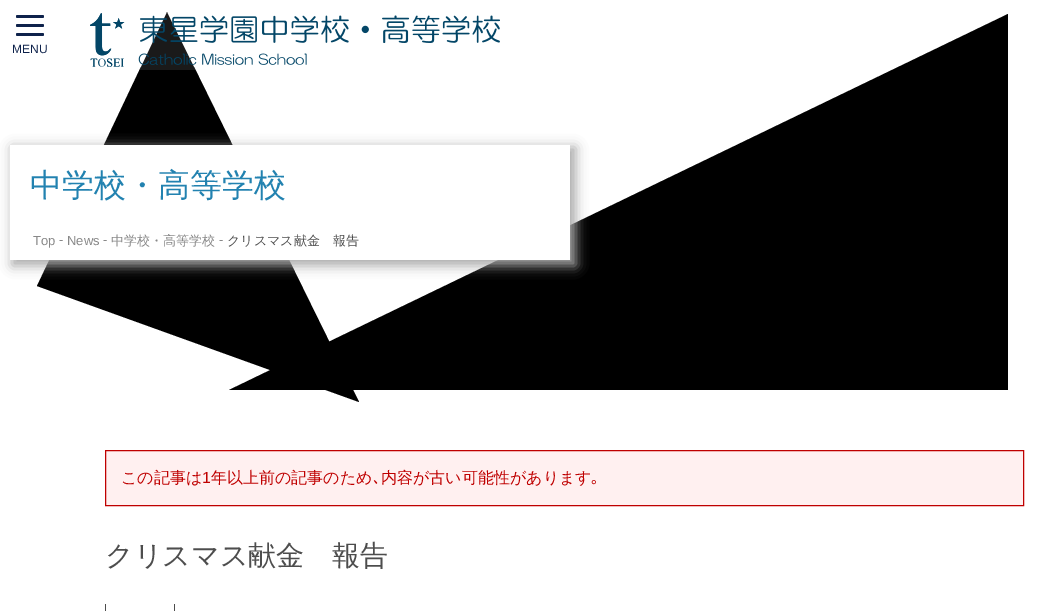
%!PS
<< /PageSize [1039 611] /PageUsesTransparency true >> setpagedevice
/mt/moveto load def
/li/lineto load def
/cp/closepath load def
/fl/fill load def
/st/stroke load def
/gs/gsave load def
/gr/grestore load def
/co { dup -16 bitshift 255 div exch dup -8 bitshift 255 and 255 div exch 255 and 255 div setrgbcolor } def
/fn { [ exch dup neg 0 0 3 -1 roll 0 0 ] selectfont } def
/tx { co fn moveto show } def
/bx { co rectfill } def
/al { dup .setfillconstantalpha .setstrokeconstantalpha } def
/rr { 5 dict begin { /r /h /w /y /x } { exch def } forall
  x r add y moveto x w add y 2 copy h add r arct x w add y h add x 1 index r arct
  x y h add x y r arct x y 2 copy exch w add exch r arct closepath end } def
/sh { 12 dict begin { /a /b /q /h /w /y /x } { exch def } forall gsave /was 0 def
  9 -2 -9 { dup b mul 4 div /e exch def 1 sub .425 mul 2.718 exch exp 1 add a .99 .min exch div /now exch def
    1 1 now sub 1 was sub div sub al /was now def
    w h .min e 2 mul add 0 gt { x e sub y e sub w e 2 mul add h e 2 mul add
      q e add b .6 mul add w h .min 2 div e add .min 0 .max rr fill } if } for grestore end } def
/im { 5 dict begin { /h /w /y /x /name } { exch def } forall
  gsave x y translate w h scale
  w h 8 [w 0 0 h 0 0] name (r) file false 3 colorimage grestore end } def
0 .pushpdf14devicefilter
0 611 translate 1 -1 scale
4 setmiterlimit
0 0 1039 611 16#FFFFFF bx
16#000000 co
1008 14 mt 229 390 li 1008 390 li cp fl
167 12 mt 359 402 li 37 286 li cp fl
16#0E224B co
16 15 28 3 1.5 rr fl
16 24 28 3 1.5 rr fl
16 33 28 3 1.5 rr fl
0.1 al
139 12 57 58 16#FFFFFF bx
1 al
(media/1.raw) 90 13 410 54 im
16#AAAAAA co
12 147 564 119 0 6 1 sh
10 145 560 115 16#FFFFFF bx
16#FFF0F0 co
105.5 450.5 mt 1023.5 450.5 li 1023.5 505.5 li 105.5 505.5 li cp gs fl gr
16#BF0000 co
st
174 604 1 7 16#4D4D4D bx
105 604 1 7 16#4D4D4D bx
(MENU) 12 53 /LiberationSans-Regular 12 16#0E224B tx
(中学校・高等学校) 30 196 /WenQuanYiZenHei-Medium 32 16#2282B0 tx
(Top) 33 245 /LiberationSans-Regular 13 16#888888 tx
(-) 59 244 /LiberationSans-Regular 13 16#888888 tx
(News) 67 245 /LiberationSans-Regular 13 16#888888 tx
(-) 103 244 /LiberationSans-Regular 13 16#888888 tx
(中学校・高等学校) 111 245 /WenQuanYiZenHei-Medium 13 16#888888 tx
(-) 219 244 /LiberationSans-Regular 13 16#888888 tx
(クリスマス献金　報告) 227 245 /WenQuanYiZenHei-Medium 13 16#4D4D4D tx
(この記事は) 121 483 /WenQuanYiZenHei-Medium 16 16#BF0000 tx
(1) 202 483 /LiberationSans-Regular 16 16#BF0000 tx
(年以上前の記事のため) 211 483 /WenQuanYiZenHei-Medium 16 16#BF0000 tx
(､) 373 483 /IPAPGothic-Regular 16 16#BF0000 tx
(内容が古い可能性があります) 381 483 /WenQuanYiZenHei-Medium 16 16#BF0000 tx
(｡) 591 483 /IPAPGothic-Regular 16 16#BF0000 tx
(クリスマス献金　報告) 105 565 /WenQuanYiZenHei-Medium 28 16#4D4D4D tx
.poppdf14devicefilter showpage
